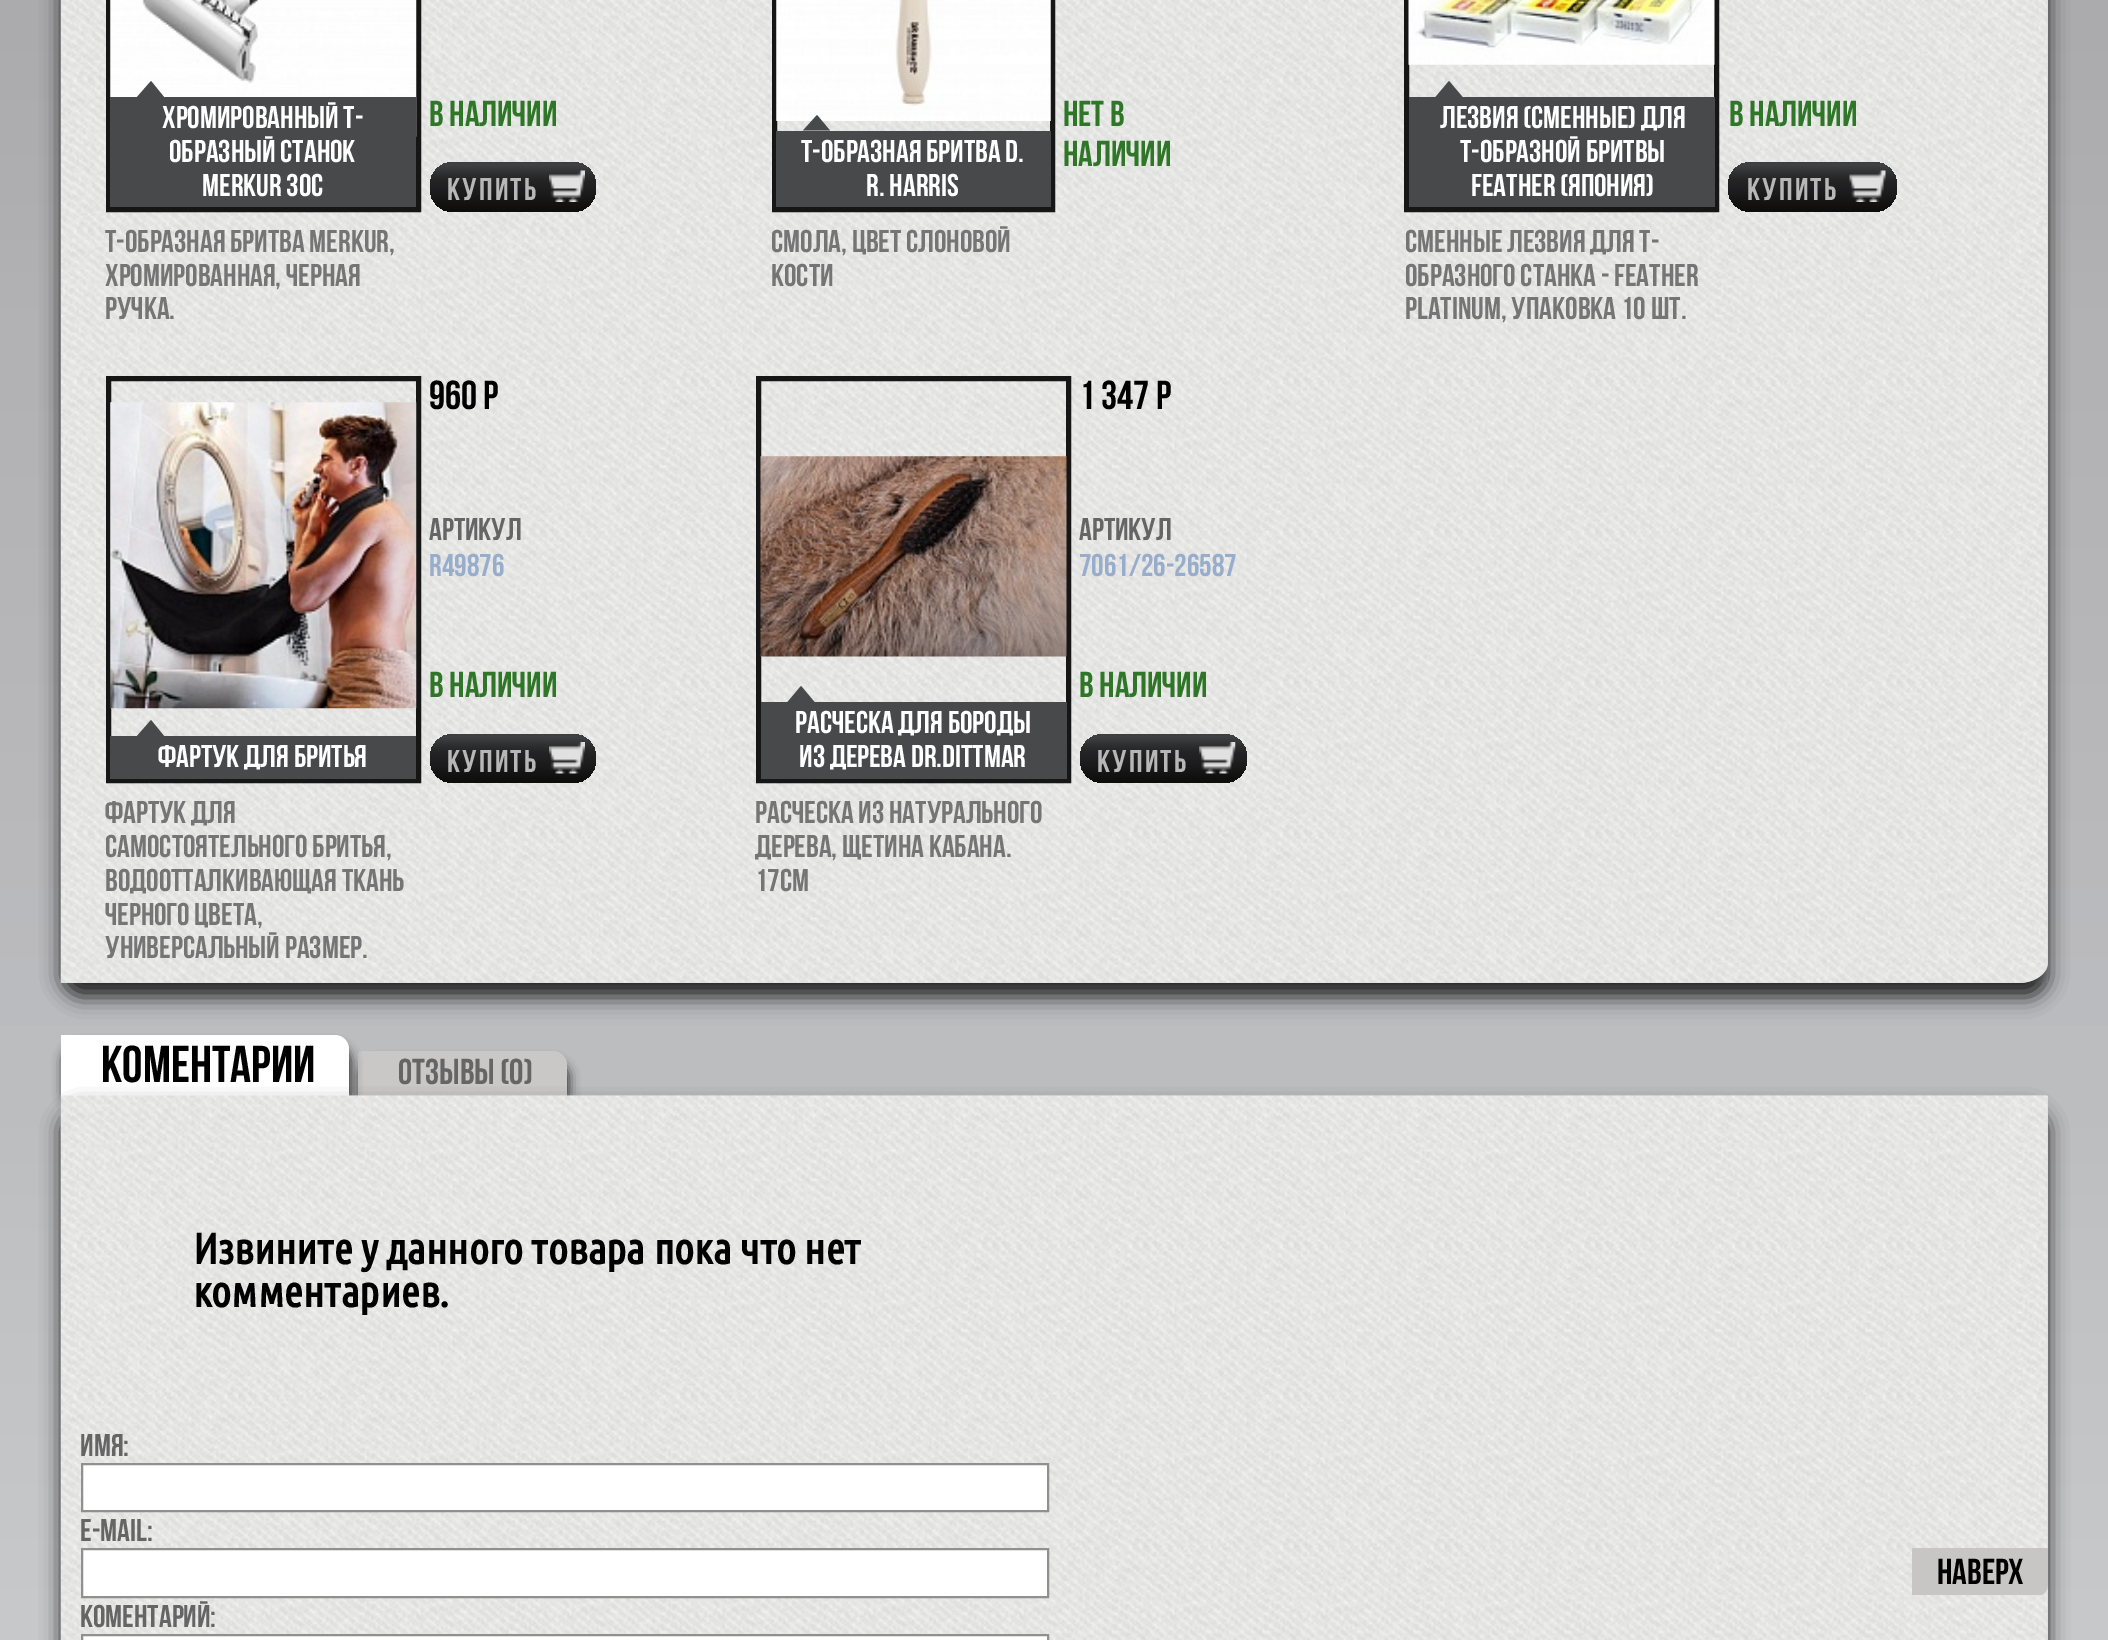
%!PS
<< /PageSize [2108 1640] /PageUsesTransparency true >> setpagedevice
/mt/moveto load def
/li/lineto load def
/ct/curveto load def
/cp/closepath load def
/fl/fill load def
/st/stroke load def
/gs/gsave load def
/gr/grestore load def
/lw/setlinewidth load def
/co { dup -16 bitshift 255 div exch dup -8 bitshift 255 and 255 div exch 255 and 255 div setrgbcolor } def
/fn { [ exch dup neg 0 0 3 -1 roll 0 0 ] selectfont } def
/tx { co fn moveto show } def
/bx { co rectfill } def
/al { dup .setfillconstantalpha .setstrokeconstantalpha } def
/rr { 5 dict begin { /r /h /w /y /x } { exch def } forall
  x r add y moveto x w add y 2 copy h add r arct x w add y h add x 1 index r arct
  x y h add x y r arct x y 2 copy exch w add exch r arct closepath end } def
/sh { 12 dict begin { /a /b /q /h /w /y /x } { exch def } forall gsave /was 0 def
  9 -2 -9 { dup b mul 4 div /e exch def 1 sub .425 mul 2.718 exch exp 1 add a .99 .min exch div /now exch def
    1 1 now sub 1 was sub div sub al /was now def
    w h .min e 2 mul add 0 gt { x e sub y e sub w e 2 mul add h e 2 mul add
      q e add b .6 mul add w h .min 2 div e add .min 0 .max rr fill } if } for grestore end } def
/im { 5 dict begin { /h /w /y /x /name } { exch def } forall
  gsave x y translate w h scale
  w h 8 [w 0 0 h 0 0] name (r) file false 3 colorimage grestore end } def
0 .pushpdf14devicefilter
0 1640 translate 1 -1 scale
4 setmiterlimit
0 0 2108 1640 16#FFFFFF bx
gs 0 0 mt 2108 0 li 2108 1640 li 0 1640 li cp clip newpath
<< /ShadingType 2 /ColorSpace /DeviceRGB /Coords [1054 -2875 1054 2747] /Extend [true true] /Function << /FunctionType 3 /Domain [0 1] /Functions [<< /FunctionType 2 /Domain [0 1] /C0 [.42 .427 .431] /C1 [.486 .49 .498] /N 1 >> << /FunctionType 2 /Domain [0 1] /C0 [.486 .49 .498] /C1 [.631 .635 .643] /N 1 >> << /FunctionType 2 /Domain [0 1] /C0 [.631 .635 .643] /C1 [.698 .698 .71] /N 1 >> << /FunctionType 2 /Domain [0 1] /C0 [.698 .698 .71] /C1 [.737 .741 .749] /N 1 >> << /FunctionType 2 /Domain [0 1] /C0 [.737 .741 .749] /C1 [.831 .835 .843] /N 1 >> << /FunctionType 2 /Domain [0 1] /C0 [.831 .835 .843] /C1 [.835 .839 .847] /N 1 >>] /Bounds [.16 .43 .57 .7 .9] /Encode [0 1 0 1 0 1 0 1 0 1 0 1] >> >> shfill gr
16#222223 co
61 -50 1987 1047 20 10 1 sh
16#DDDEDC co
61 -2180 mt 2048 -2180 li 2048 963 li 2048 974 2034 983 2018 983 ct 61 983 li cp fl
(media/1.raw) 60 0 1988 983 im
16#161616 co
5 lw
108.5 -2.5 310 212 rectstroke
(media/2.raw) 110 0 307 137 im
110 97 306 110 16#48494A bx
164 97 mt 137 97 li 151 81 li cp fl
gs 430 162 166 50 23 rr clip newpath
<< /ShadingType 2 /ColorSpace /DeviceRGB /Coords [513 162 513 212] /Extend [true true] /Function << /FunctionType 3 /Domain [0 1] /Functions [<< /FunctionType 2 /Domain [0 1] /C0 [.239 .243 .251] /C1 [.255 .255 .263] /N 1 >> << /FunctionType 2 /Domain [0 1] /C0 [.255 .255 .263] /C1 [.169 .173 .176] /N 1 >> << /FunctionType 2 /Domain [0 1] /C0 [.169 .173 .176] /C1 [.141 .141 .145] /N 1 >> << /FunctionType 2 /Domain [0 1] /C0 [.141 .141 .145] /C1 [.11 .106 .11] /N 1 >> << /FunctionType 2 /Domain [0 1] /C0 [.11 .106 .11] /C1 [.067 .063 .059] /N 1 >> << /FunctionType 2 /Domain [0 1] /C0 [.067 .063 .059] /C1 [.051 .051 .055] /N 1 >>] /Bounds [.05 .26 .37 .63 .89] /Encode [0 1 0 1 0 1 0 1 0 1 0 1] >> >> shfill gr
(media/3.raw) 549 170 36 32 im
16#161616 co
774.5 -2.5 278 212 rectstroke
(media/4.raw) 776 0 275 121 im
776 131 275 76 16#48494A bx
830 130.5 mt 803 130.5 li 817 115 li cp fl
16#161616 co
1406.5 -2.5 310 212 rectstroke
(media/5.raw) 1408 0 307 65 im
1409 97 306 110 16#48494A bx
1462.5 97 mt 1435.5 97 li 1449 81 li cp fl
gs 1728 162 169 50 23 rr clip newpath
<< /ShadingType 2 /ColorSpace /DeviceRGB /Coords [1812 162 1812 212] /Extend [true true] /Function << /FunctionType 3 /Domain [0 1] /Functions [<< /FunctionType 2 /Domain [0 1] /C0 [.239 .243 .251] /C1 [.255 .255 .263] /N 1 >> << /FunctionType 2 /Domain [0 1] /C0 [.255 .255 .263] /C1 [.169 .173 .176] /N 1 >> << /FunctionType 2 /Domain [0 1] /C0 [.169 .173 .176] /C1 [.141 .141 .145] /N 1 >> << /FunctionType 2 /Domain [0 1] /C0 [.141 .141 .145] /C1 [.11 .106 .11] /N 1 >> << /FunctionType 2 /Domain [0 1] /C0 [.11 .106 .11] /C1 [.067 .063 .059] /N 1 >> << /FunctionType 2 /Domain [0 1] /C0 [.067 .063 .059] /C1 [.051 .051 .055] /N 1 >>] /Bounds [.05 .26 .37 .63 .89] /Encode [0 1 0 1 0 1 0 1 0 1 0 1] >> >> shfill gr
(media/6.raw) 1849 170 37 32 im
gs 430 734 166 49 23 rr clip newpath
<< /ShadingType 2 /ColorSpace /DeviceRGB /Coords [513 734 513 783] /Extend [true true] /Function << /FunctionType 3 /Domain [0 1] /Functions [<< /FunctionType 2 /Domain [0 1] /C0 [.239 .243 .251] /C1 [.255 .255 .263] /N 1 >> << /FunctionType 2 /Domain [0 1] /C0 [.255 .255 .263] /C1 [.169 .173 .176] /N 1 >> << /FunctionType 2 /Domain [0 1] /C0 [.169 .173 .176] /C1 [.141 .141 .145] /N 1 >> << /FunctionType 2 /Domain [0 1] /C0 [.141 .141 .145] /C1 [.11 .106 .11] /N 1 >> << /FunctionType 2 /Domain [0 1] /C0 [.11 .106 .11] /C1 [.067 .063 .059] /N 1 >> << /FunctionType 2 /Domain [0 1] /C0 [.067 .063 .059] /C1 [.051 .051 .055] /N 1 >>] /Bounds [.05 .26 .37 .63 .89] /Encode [0 1 0 1 0 1 0 1 0 1 0 1] >> >> shfill gr
(media/7.raw) 549 742 36 32 im
16#161616 co
108.5 378.5 310 402 rectstroke
(media/8.raw) 110 402 307 307 im
110 736 306 43 16#48494A bx
164 736 mt 137 736 li 151 720 li cp fl
gs 1080 734 167 49 23 rr clip newpath
<< /ShadingType 2 /ColorSpace /DeviceRGB /Coords [1163 734 1163 783] /Extend [true true] /Function << /FunctionType 3 /Domain [0 1] /Functions [<< /FunctionType 2 /Domain [0 1] /C0 [.239 .243 .251] /C1 [.255 .255 .263] /N 1 >> << /FunctionType 2 /Domain [0 1] /C0 [.255 .255 .263] /C1 [.169 .173 .176] /N 1 >> << /FunctionType 2 /Domain [0 1] /C0 [.169 .173 .176] /C1 [.141 .141 .145] /N 1 >> << /FunctionType 2 /Domain [0 1] /C0 [.141 .141 .145] /C1 [.11 .106 .11] /N 1 >> << /FunctionType 2 /Domain [0 1] /C0 [.11 .106 .11] /C1 [.067 .063 .059] /N 1 >> << /FunctionType 2 /Domain [0 1] /C0 [.067 .063 .059] /C1 [.051 .051 .055] /N 1 >>] /Bounds [.05 .26 .37 .63 .89] /Encode [0 1 0 1 0 1 0 1 0 1 0 1] >> >> shfill gr
(media/9.raw) 1199 742 37 32 im
16#161616 co
758.5 378.5 310 402 rectstroke
(media/10.raw) 760 456 307 201 im
761 702 306 77 16#48494A bx
814.5 702 mt 787.5 702 li 801 686 li cp fl
16#000000 co
360 1062 209 45 14 5.5 .75 sh
16#CAC7C7 co
363 1051 mt 553 1051 li 560.5 1051 567 1057.5 567 1065 ct 567 1096 li 358 1096 li 358 1056 li 358 1053 360 1051 363 1051 ct cp fl
16#000000 co
63 1046 288 61 14 5.5 .75 sh
16#FFFFFF co
61 1035 mt 335 1035 li 342.5 1035 349 1041.5 349 1049 ct 349 1096 li 61 1096 li cp fl
16#222223 co
61 1109 1987 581 20 10 1 sh
16#DDDEDC co
61 1096 mt 2048 1096 li 2048 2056 li 2048 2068 2034 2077 2018 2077 ct 61 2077 li cp fl
(media/11.raw) 60 1095 1988 545 im
16#FFFFFF co
82 1464 mt 1048 1464 li 1048 1511 li 82 1511 li cp gs fl gr
16#90918F co
2 lw
st
16#FFFFFF co
82 1549 mt 1048 1549 li 1048 1597 li 82 1597 li cp gs fl gr
16#90918F co
st
16#FFFFFF co
82 1635 mt 1048 1635 li 1048 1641 li 82 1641 li cp gs fl gr
16#90918F co
st
16#C8C5C5 co
1912 1548 mt 2048 1548 li 2048 1584 li 2048 1590 2044 1595 2041 1595 ct 1912 1595 li cp fl
(Хромированный Т-) 162 128 /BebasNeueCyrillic-Regular 31.5 16#FFFFFF tx
(образный станок) 169 162 /BebasNeueCyrillic-Regular 31.5 16#FFFFFF tx
(Merkur 30C) 202 196 /BebasNeueCyrillic-Regular 31.5 16#FFFFFF tx
(Т-образная бритва Merkur,) 105 252 /BebasNeueCyrillic-Regular 31.5 16#757575 tx
(хромированная, черная) 105 286 /BebasNeueCyrillic-Regular 31.5 16#757575 tx
(ручка.) 105 319 /BebasNeueCyrillic-Regular 31.5 16#757575 tx
(В наличии) 429 126 /BebasNeueCyrillic-Regular 36 16#307628 tx
/BebasNeueCyrillic-Regular 31.5 fn
16#B7B7B7 co
447 200 mt 2.25 0 (КУПИТЬ) ashow
(Т-образная бритва D.) 801 162 /BebasNeueCyrillic-Regular 31.5 16#FFFFFF tx
(R. Harris) 866 196 /BebasNeueCyrillic-Regular 31.5 16#FFFFFF tx
(Cмола, цвет слоновой) 771 252 /BebasNeueCyrillic-Regular 31.5 16#757575 tx
(кости) 771 286 /BebasNeueCyrillic-Regular 31.5 16#757575 tx
(Нет в) 1063 126 /BebasNeueCyrillic-Regular 36 16#307628 tx
(наличии) 1063 166 /BebasNeueCyrillic-Regular 36 16#307628 tx
(Лезвия \(сменные\) для) 1440 128 /BebasNeueCyrillic-Regular 31.5 16#FFFFFF tx
(Т-образной бритвы) 1460 162 /BebasNeueCyrillic-Regular 31.5 16#FFFFFF tx
(Feather \(Япония\)) 1471 196 /BebasNeueCyrillic-Regular 31.5 16#FFFFFF tx
(Сменные лезвия для Т-) 1405 252 /BebasNeueCyrillic-Regular 31.5 16#757575 tx
(образного станка - Feather) 1405 286 /BebasNeueCyrillic-Regular 31.5 16#757575 tx
(Platinum, упаковка 10 шт.) 1405 319 /BebasNeueCyrillic-Regular 31.5 16#757575 tx
(В наличии) 1729 126 /BebasNeueCyrillic-Regular 36 16#307628 tx
/BebasNeueCyrillic-Regular 31.5 fn
16#B7B7B7 co
1747 200 mt 2.25 0 (КУПИТЬ) ashow
(960 р) 429 409 /BebasNeueCyrillic-Regular 40.5 16#000000 tx
(Артикул) 429 540 /BebasNeueCyrillic-Regular 31.5 16#656565 tx
(R49876) 429 576 /BebasNeueCyrillic-Regular 31.5 16#98ACCC tx
(В наличии) 429 697 /BebasNeueCyrillic-Regular 36 16#307628 tx
/BebasNeueCyrillic-Regular 31.5 fn
16#B7B7B7 co
447 772 mt 2.25 0 (КУПИТЬ) ashow
(Фартук для бритья) 158 767 /BebasNeueCyrillic-Regular 31.5 16#FFFFFF tx
(Фартук для) 105 823 /BebasNeueCyrillic-Regular 31.5 16#757575 tx
(самостоятельного бритья,) 105 857 /BebasNeueCyrillic-Regular 31.5 16#757575 tx
(водоотталкивающая ткань) 105 891 /BebasNeueCyrillic-Regular 31.5 16#757575 tx
(черного цвета,) 105 925 /BebasNeueCyrillic-Regular 31.5 16#757575 tx
(универсальный размер.) 105 958 /BebasNeueCyrillic-Regular 31.5 16#757575 tx
(1 347 р) 1079 409 /BebasNeueCyrillic-Regular 40.5 16#000000 tx
(Артикул) 1079 540 /BebasNeueCyrillic-Regular 31.5 16#656565 tx
(7061/26-26587) 1079 576 /BebasNeueCyrillic-Regular 31.5 16#98ACCC tx
(В наличии) 1079 697 /BebasNeueCyrillic-Regular 36 16#307628 tx
/BebasNeueCyrillic-Regular 31.5 fn
16#B7B7B7 co
1097 772 mt 2.25 0 (КУПИТЬ) ashow
(Расческа для бороды) 795 733 /BebasNeueCyrillic-Regular 31.5 16#FFFFFF tx
(из дерева Dr.Dittmar) 799 767 /BebasNeueCyrillic-Regular 31.5 16#FFFFFF tx
(Расческа из натурального) 755 823 /BebasNeueCyrillic-Regular 31.5 16#757575 tx
(дерева, щетина кабана.) 755 857 /BebasNeueCyrillic-Regular 31.5 16#757575 tx
(17см) 755 891 /BebasNeueCyrillic-Regular 31.5 16#757575 tx
(КОМЕНТАРИИ) 101 1082 /BebasNeueCyrillic-Regular 51.75 16#000000 tx
(ОТЗЫВЫ \(0\)) 398 1084 /BebasNeueCyrillic-Regular 36 16#656565 tx
(Извините у данного товара пока что нет) 193 1264 /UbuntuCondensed-Bold 43.25 16#000000 tx
(комментариев.) 193 1307 /UbuntuCondensed-Bold 43.25 16#000000 tx
(Имя:) 80 1456 /BebasNeueCyrillic-Regular 31.5 16#656565 tx
(E-MAIL:) 80 1541 /BebasNeueCyrillic-Regular 31.5 16#656565 tx
(коментарий:) 80 1627 /BebasNeueCyrillic-Regular 31.5 16#656565 tx
(НАВЕРХ) 1937 1584 /BebasNeueCyrillic-Regular 36 16#000000 tx
.poppdf14devicefilter showpage
